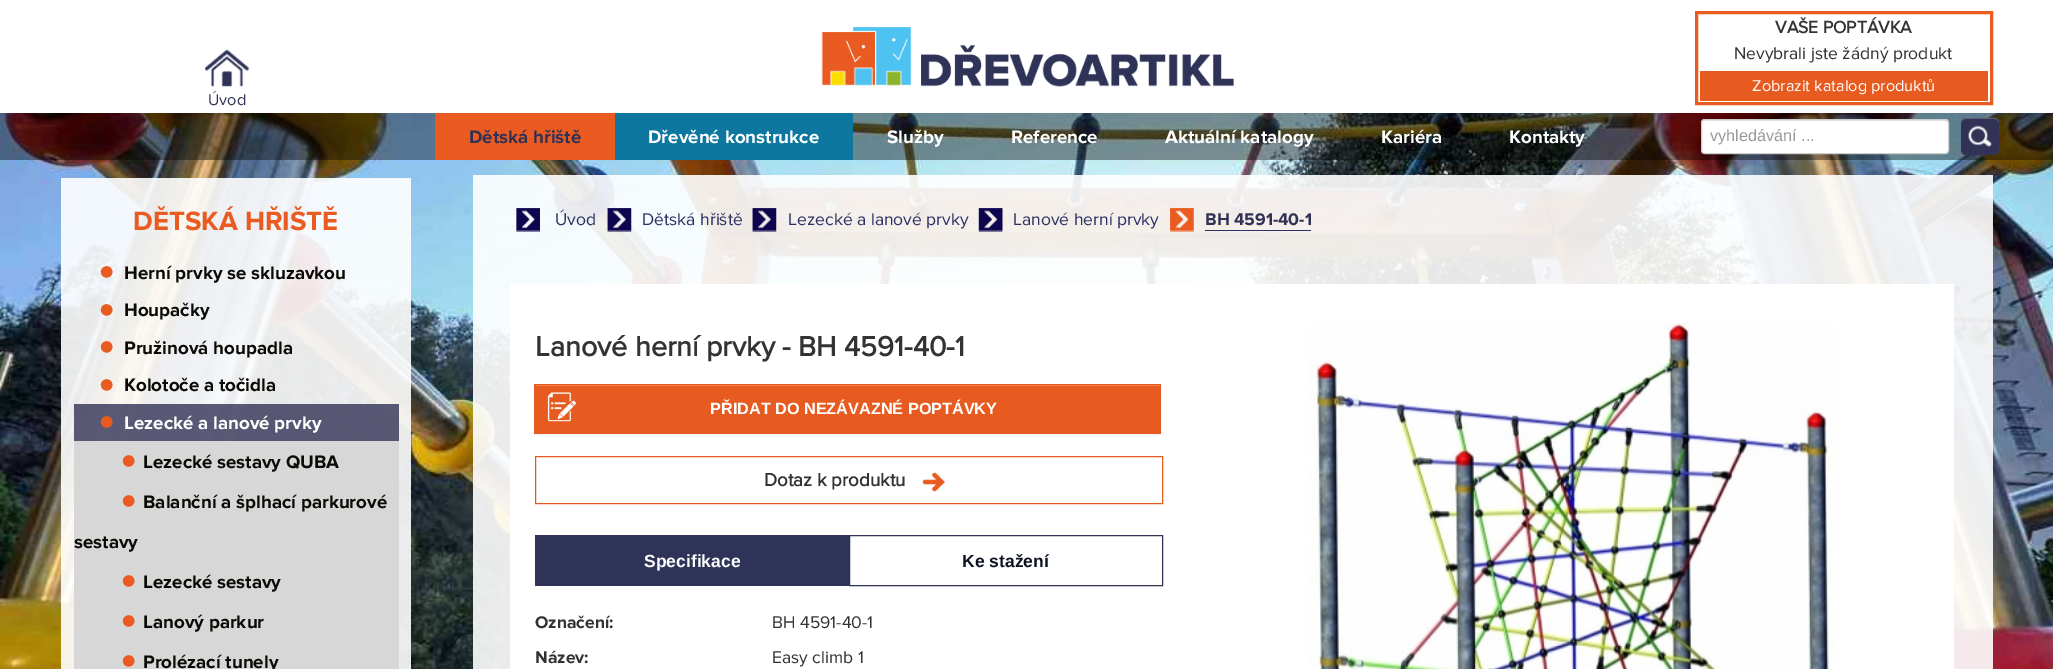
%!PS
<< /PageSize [2053 669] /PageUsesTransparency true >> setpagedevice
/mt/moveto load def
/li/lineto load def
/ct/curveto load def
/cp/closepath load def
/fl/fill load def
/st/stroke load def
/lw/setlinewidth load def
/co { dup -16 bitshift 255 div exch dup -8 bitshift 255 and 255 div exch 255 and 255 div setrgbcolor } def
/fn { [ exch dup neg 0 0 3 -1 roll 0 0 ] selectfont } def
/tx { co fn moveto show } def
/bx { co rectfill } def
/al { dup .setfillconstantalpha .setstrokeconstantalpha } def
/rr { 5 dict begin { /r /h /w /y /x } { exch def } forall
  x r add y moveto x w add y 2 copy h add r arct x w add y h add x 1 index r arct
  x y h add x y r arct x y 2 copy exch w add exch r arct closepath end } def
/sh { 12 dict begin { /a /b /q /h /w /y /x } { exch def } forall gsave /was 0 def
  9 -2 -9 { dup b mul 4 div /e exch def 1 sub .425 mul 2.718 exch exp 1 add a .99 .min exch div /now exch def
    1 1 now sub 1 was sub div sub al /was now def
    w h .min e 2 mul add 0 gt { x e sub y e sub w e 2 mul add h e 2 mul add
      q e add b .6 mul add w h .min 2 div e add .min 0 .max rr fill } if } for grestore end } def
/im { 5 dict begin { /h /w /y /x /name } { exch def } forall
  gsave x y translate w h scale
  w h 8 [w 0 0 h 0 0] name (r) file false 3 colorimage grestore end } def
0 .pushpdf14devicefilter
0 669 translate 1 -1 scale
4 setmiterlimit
0 0 2053 669 16#FFFFFF bx
16#EA5B21 co
3 lw
1696.5 12.5 295 91 rectstroke
1700 71 288 30 16#E75B20 bx
(media/1.raw) 821 27 413 60 im
(media/2.raw) 205 49 45 38 im
(media/3.raw) 0 113 2053 556 im
0.4 al
0 113 2053 47 16#000000 bx
1 al
435 113 180 47 16#EA5B21 bx
615 113 238 47 16#0D77A0 bx
16#FFFFFF co
1701 119 248 35 4 rr fl
16#ECECEC co
1705 121 mt 1945 121 li 1946 121 1948 122 1948 124 ct 1948 122 1948 120 1946 120 ct 1705 120 li 1703 122 li cp fl
16#CCCCCC co
1 lw
1701.5 119.5 247 34 3.5 rr st
16#323256 co
1961 118 38 37 5 rr fl
(media/4.raw) 1968 125 24 22 im
0.2 al
16#FFFFFF co
1966 119 mt 1994 119 li 1997 119 1999 121 1999 124 ct 1999 117.5 1994.5 118 1989.5 118 ct 1970.5 118 li 1965.5 118 1961 117.5 1961 124 ct 1961 121 1963 119 1966 119 ct cp fl
0.9 al
61 178 350 491 16#FFFFFF bx
0.8 al
74 404 325 37 16#323256 bx
1 al
74 441 325 228 16#D7D7D7 bx
0.9 al
473 175 1520 494 16#FFFFFF bx
1 al
(media/5.raw) 516 208 24 24 im
(media/6.raw) 607 208 25 24 im
(media/7.raw) 752 208 25 24 im
(media/8.raw) 978 208 25 24 im
(media/9.raw) 1170 208 24 24 im
1205 230 106 1 16#2B3263 bx
510 284 1444 385 16#FFFFFF bx
16#000000 co
534 385 627 50 0 1 .05 sh
534 384 627 50 16#E75B20 bx
535 385 625 1 16#EC7C4D bx
(media/10.raw) 547 392 29 30 im
16#E75B20 co
535.5 456.5 627 47 rectstroke
(media/11.raw) 922 472 24 20 im
535 535 314 51 16#2E3357 bx
849.5 535.5 313 50 rectstroke
(media/12.raw) 1309 322 526 347 im
(VAŠE POPTÁVKA) 1775 33 /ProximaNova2-Bold 17.5 16#333333 tx
(Nevybrali jste žádný produkt) 1734 59 /ProximaNova-Regular 17.5 16#333333 tx
(Zobrazit katalog produktů) 1752 91 /ProximaNova-Regular 16.25 16#FFFFFF tx
(Úvod) 208 105 /ProximaNova-Regular 16.25 16#313155 tx
(Dětská hřiště) 469 143 /ProximaNova-Bold 18.75 16#313155 tx
(Dřevěné konstrukce) 648 143 /ProximaNova-Bold 18.75 16#FFFFFF tx
(Služby) 887 143 /ProximaNova-Bold 18.75 16#FFFFFF tx
(Reference) 1011 143 /ProximaNova-Bold 18.75 16#FFFFFF tx
(Aktuální katalogy) 1165 143 /ProximaNova-Bold 18.75 16#FFFFFF tx
(Kariéra) 1381 143 /ProximaNova-Bold 18.75 16#FFFFFF tx
(Kontakty) 1509 143 /ProximaNova-Bold 18.75 16#FFFFFF tx
(vyhledávání ...) 1710 141 /LiberationSans-Regular 16.25 16#999999 tx
(DĚTSKÁ HŘIŠTĚ) 133 230 /ProximaNova-Bold 27.5 16#EA5B21 tx
(•) 97 285 /ProximaNova-Regular 54 16#EA5B21 tx
(Herní prvky se skluzavkou) 124 279 /ProximaNova-Bold 18.75 16#0A0B05 tx
(•) 97 323 /ProximaNova-Regular 54 16#EA5B21 tx
(Houpačky) 124 316 /ProximaNova-Bold 18.75 16#0A0B05 tx
(•) 97 360 /ProximaNova-Regular 54 16#EA5B21 tx
(Pružinová houpadla) 124 354 /ProximaNova-Bold 18.75 16#0A0B05 tx
(•) 97 398 /ProximaNova-Regular 54 16#EA5B21 tx
(Kolotoče a točidla) 124 391 /ProximaNova-Bold 18.75 16#0A0B05 tx
(•) 97 435 /ProximaNova-Regular 54 16#EA5B21 tx
(Lezecké a lanové prvky) 124 429 /ProximaNova-Bold 18.75 16#FFFFFF tx
(•) 119 474 /ProximaNova-Regular 54 16#EA5B21 tx
(Lezecké sestavy QUBA) 143 468 /ProximaNova-Bold 18.75 16#0A0B05 tx
(•) 119 514 /ProximaNova-Regular 54 16#EA5B21 tx
(Balanční a šplhací parkurové) 143 508 /ProximaNova-Bold 18.75 16#0A0B05 tx
(sestavy) 74 548 /ProximaNova-Bold 18.75 16#0A0B05 tx
(•) 119 594 /ProximaNova-Regular 54 16#EA5B21 tx
(Lezecké sestavy) 143 588 /ProximaNova-Bold 18.75 16#0A0B05 tx
(•) 119 634 /ProximaNova-Regular 54 16#EA5B21 tx
(Lanový parkur) 143 628 /ProximaNova-Bold 18.75 16#0A0B05 tx
(•) 119 674 /ProximaNova-Regular 54 16#EA5B21 tx
(Prolézací tunely) 143 668 /ProximaNova-Bold 18.75 16#0A0B05 tx
(Úvod) 555 225 /ProximaNova-Regular 17.5 16#2B3263 tx
(Dětská hřiště) 642 225 /ProximaNova-Regular 17.5 16#2B3263 tx
(Lezecké a lanové prvky) 788 225 /ProximaNova-Regular 17.5 16#2B3263 tx
(Lanové herní prvky) 1013 225 /ProximaNova-Regular 17.5 16#2B3263 tx
(BH 4591-40-1) 1205 225 /ProximaNova-Bold 17.5 16#313155 tx
(Lanové herní prvky - BH 4591-40-1) 535 356 /ProximaNova2-Bold 28.75 16#333333 tx
(PŘIDAT DO NEZÁVAZNÉ POPTÁVKY) 710 414 /LiberationSans-Bold 16.25 16#FFFFFF tx
(Dotaz k produktu) 764 486 /ProximaNova2-Bold 18.75 16#333333 tx
(Specifikace) 644 567 /LiberationSans-Bold 17.5 16#FFFFFF tx
(Ke stažení) 962 567 /LiberationSans-Bold 17.5 16#0D1321 tx
(Označení:) 535 628 /ProximaNova-Bold 17.5 16#333333 tx
(BH 4591-40-1) 772 628 /ProximaNova-Regular 17.5 16#333333 tx
(Název:) 535 663 /ProximaNova-Bold 17.5 16#333333 tx
(Easy climb 1) 772 663 /ProximaNova-Regular 17.5 16#333333 tx
.poppdf14devicefilter showpage
